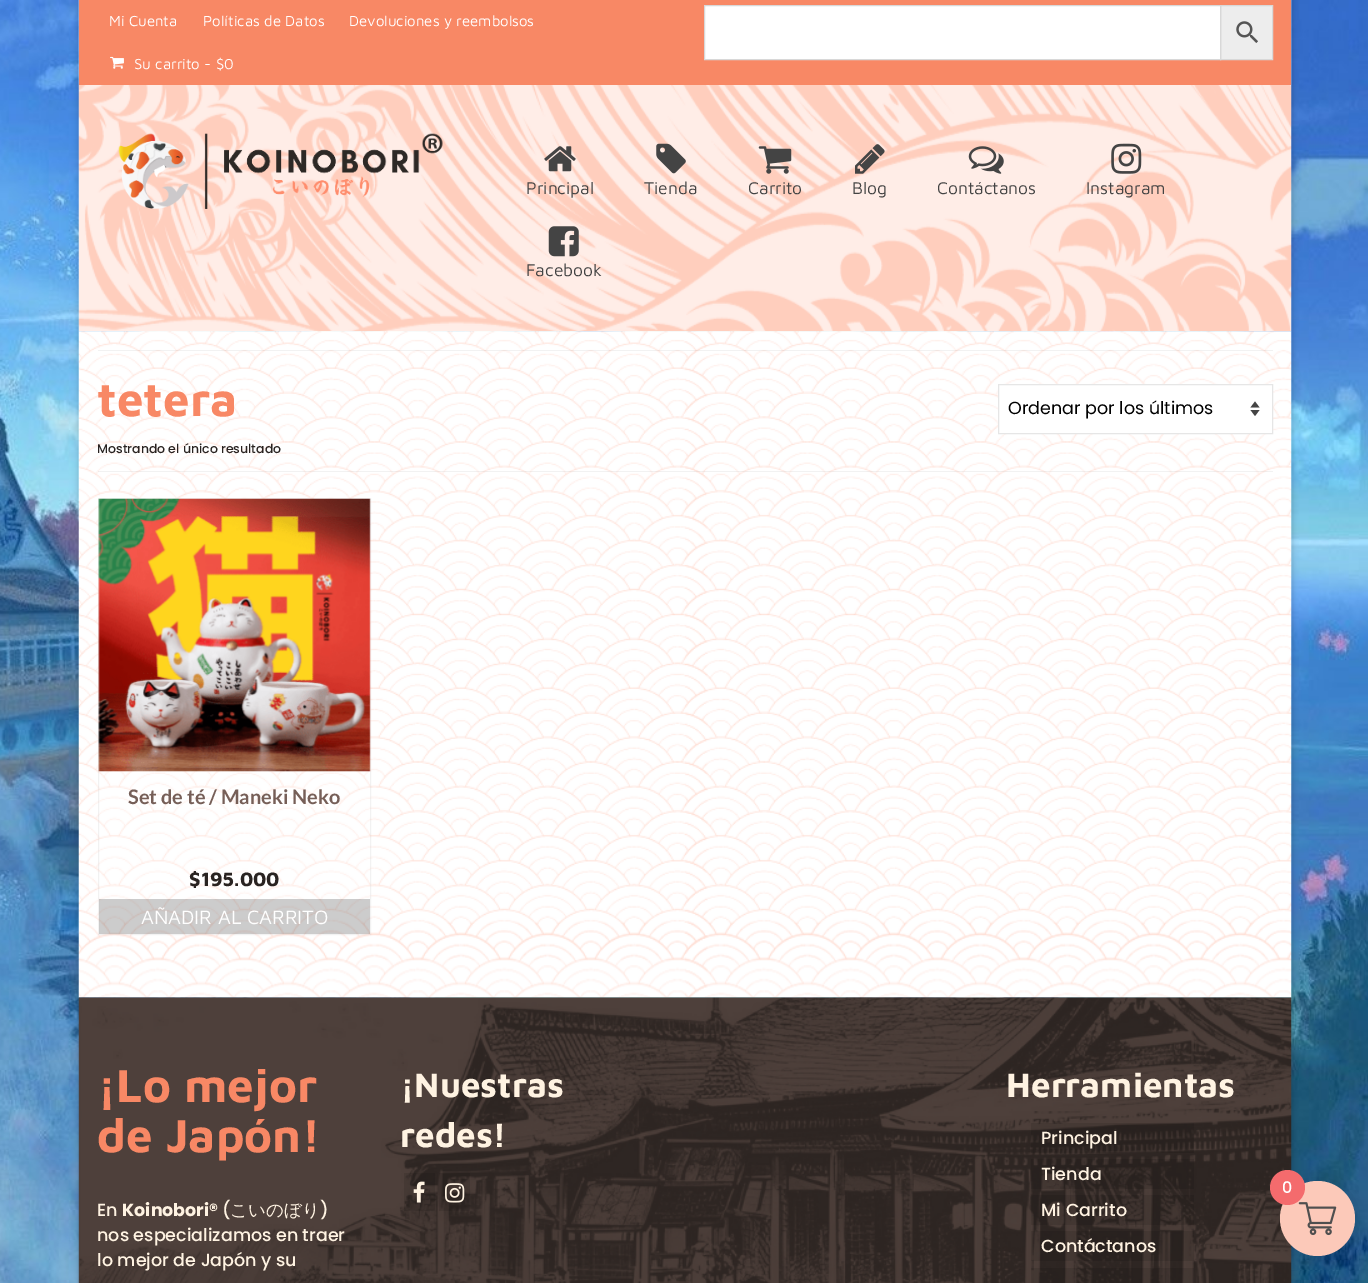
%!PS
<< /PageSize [1368 1283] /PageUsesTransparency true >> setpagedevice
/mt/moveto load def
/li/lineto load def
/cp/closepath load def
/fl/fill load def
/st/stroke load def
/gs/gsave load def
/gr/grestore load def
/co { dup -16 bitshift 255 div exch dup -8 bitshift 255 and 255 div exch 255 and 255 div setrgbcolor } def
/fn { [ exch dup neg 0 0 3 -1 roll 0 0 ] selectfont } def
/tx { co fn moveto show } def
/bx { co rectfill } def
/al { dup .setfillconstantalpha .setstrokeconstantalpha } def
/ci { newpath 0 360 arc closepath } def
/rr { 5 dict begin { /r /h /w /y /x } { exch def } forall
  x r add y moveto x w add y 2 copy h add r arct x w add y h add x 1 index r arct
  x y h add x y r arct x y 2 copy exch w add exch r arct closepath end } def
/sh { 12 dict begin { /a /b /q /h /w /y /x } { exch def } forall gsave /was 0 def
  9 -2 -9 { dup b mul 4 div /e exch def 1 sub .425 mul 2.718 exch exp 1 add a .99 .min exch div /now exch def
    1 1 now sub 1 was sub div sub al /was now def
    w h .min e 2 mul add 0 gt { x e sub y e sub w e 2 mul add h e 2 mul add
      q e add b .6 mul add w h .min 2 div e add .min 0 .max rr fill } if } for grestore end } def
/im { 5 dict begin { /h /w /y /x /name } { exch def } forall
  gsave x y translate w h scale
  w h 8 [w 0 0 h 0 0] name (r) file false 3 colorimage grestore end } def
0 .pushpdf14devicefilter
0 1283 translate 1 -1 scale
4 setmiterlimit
0 0 1368 1283 16#FFFFFF bx
(media/1.raw) 0 0 1368 1283 im
16#000000 co
78 -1 1215 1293 0 3 .16 sh
(media/2.raw) 78 0 1214 332 im
79 0 1212 85 16#F88865 bx
(media/3.raw) 110 56 14 13 im
16#EDEDED co
1220.5 5.5 mt 1272.5 5.5 li 1272.5 59.5 li 1220.5 59.5 li cp gs fl gr
16#D8D8D8 co
st
16#FFFFFF co
704.5 5.5 mt 1220.5 5.5 li 1220.5 59.5 li 704.5 59.5 li cp gs fl gr
16#D8D8D8 co
st
(media/4.raw) 1236 21 22 22 im
(media/5.raw) 118 133 325 76 im
(media/6.raw) 544 146 32 26 im
(media/7.raw) 656 143 30 31 im
(media/8.raw) 758 146 34 28 im
(media/9.raw) 855 144 30 30 im
(media/10.raw) 968 146 36 28 im
(media/11.raw) 1111 143 31 31 im
(media/12.raw) 548 226 31 31 im
(media/13.raw) 78 331 1214 667 im
0.05 al
98 350 1175 1 16#000000 bx
98 471 1175 1 16#000000 bx
1 al
999 385 273 48 16#FFFFFF bx
16#444444 co
1250.5 407.5 mt 1255 401.5 li 1259.5 407.5 li cp 1259.5 410 mt 1255 416 li 1250.5 410 li cp fl
16#E6E6E6 co
998.5 384.5 274 49 rectstroke
0.2 al
98 498 273 437 16#FFFFFF bx
0.05 al
16#000000 co
98.5 498.5 272 436 rectstroke
1 al
(media/14.raw) 98 498 273 274 im
0.2 al
99 899 271 35 16#000000 bx
1 al
(media/15.raw) 78 997 1214 286 im
0.1 al
404 1173 31 38 16#000000 bx
1 al
(media/16.raw) 413 1181 12 22 im
0.1 al
439 1173 31 38 16#000000 bx
1 al
(media/17.raw) 445 1183 20 20 im
0.1 al
1031 1123 163 30 16#000000 bx
1031 1159 163 30 16#000000 bx
1031 1195 163 30 16#000000 bx
1031 1231 163 30 16#000000 bx
1031 1268 163 15 16#000000 bx
1 al
1278 1179 80 80 40 9.5 .1 sh
16#FCC9B9 co
1317.5 1218.5 37.5 ci fl
(media/18.raw) 1298 1202 39 34 im
16#F46B6D co
1287.5 1187.5 17.5 ci fl
(Mi Cuenta) 109 26 /MavenPro-Regular 15 16#FFFFFF tx
(Políticas de Datos) 203 26 /MavenPro-Regular 15 16#FFFFFF tx
(Devoluciones y reembolsos) 349 26 /MavenPro-Regular 15 16#FFFFFF tx
(Su carrito - $0) 134 69 /MavenPro-Regular 15 16#FFFFFF tx
(Principal) 526 194 /MavenPro-Regular 17.5 16#444444 tx
(Tienda) 644 194 /MavenPro-Regular 17.5 16#444444 tx
(Carrito) 748 194 /MavenPro-Regular 17.5 16#444444 tx
(Blog) 852 194 /MavenPro-Regular 17.5 16#444444 tx
(Contáctanos) 937 194 /MavenPro-Regular 17.5 16#444444 tx
(Instagram) 1086 194 /MavenPro-Regular 17.5 16#444444 tx
(Facebook) 526 276 /MavenPro-Regular 17.5 16#444444 tx
(tetera) 97 416 /MavenPro-Bold 47.5 16#F88865 tx
(Ordenar por los últimos) 1008 414 /Poppins-Regular 17.5 16#000000 tx
(Mostrando el único resultado) 97 453 /Poppins-Medium 12.5 16#292321 tx
(Set de té / Maneki Neko) 128 804 /Lato-Bold 20 16#765F58 tx
($195.000) 189 886 /MavenPro-Bold 20 16#292321 tx
(AÑADIR AL CARRITO) 141 924 /MavenPro-Regular 20 16#FFFFFF tx
(¡Lo mejor) 97 1102 /MavenPro-Bold 47.5 16#F88865 tx
(de Japón!) 97 1152 /MavenPro-Bold 47.5 16#F88865 tx
(En) 97 1216 /Poppins-Medium 17.5 16#FFF3E2 tx
(Koinobori®) 122 1216 /Poppins-Bold 17.5 16#FFF3E2 tx
(\() 222 1216 /Poppins-Medium 17.5 16#FFF3E2 tx
(こいのぼり) 230 1216 /WenQuanYiZenHei-Medium 17.5 16#FFF3E2 tx
(\)) 320 1216 /Poppins-Medium 17.5 16#FFF3E2 tx
(nos especializamos en traer) 97 1241 /Poppins-Medium 17.5 16#FFF3E2 tx
(lo mejor de Japón y su) 97 1266 /Poppins-Medium 17.5 16#FFF3E2 tx
(¡Nuestras) 400 1097 /MavenPro-Bold 35 16#FFF3E2 tx
(redes!) 400 1147 /MavenPro-Bold 35 16#FFF3E2 tx
(Herramientas) 1006 1097 /MavenPro-Bold 35 16#FFF3E2 tx
(Principal) 1041 1144 /Poppins-Medium 17.5 16#FFF3E2 tx
(Tienda) 1041 1180 /Poppins-Medium 17.5 16#FFF3E2 tx
(Mi Carrito) 1041 1216 /Poppins-Medium 17.5 16#FFF3E2 tx
(Contáctanos) 1041 1252 /Poppins-Medium 17.5 16#FFF3E2 tx
(0) 1282 1193 /Poppins-Medium 16 16#FFFFFF tx
.poppdf14devicefilter showpage
